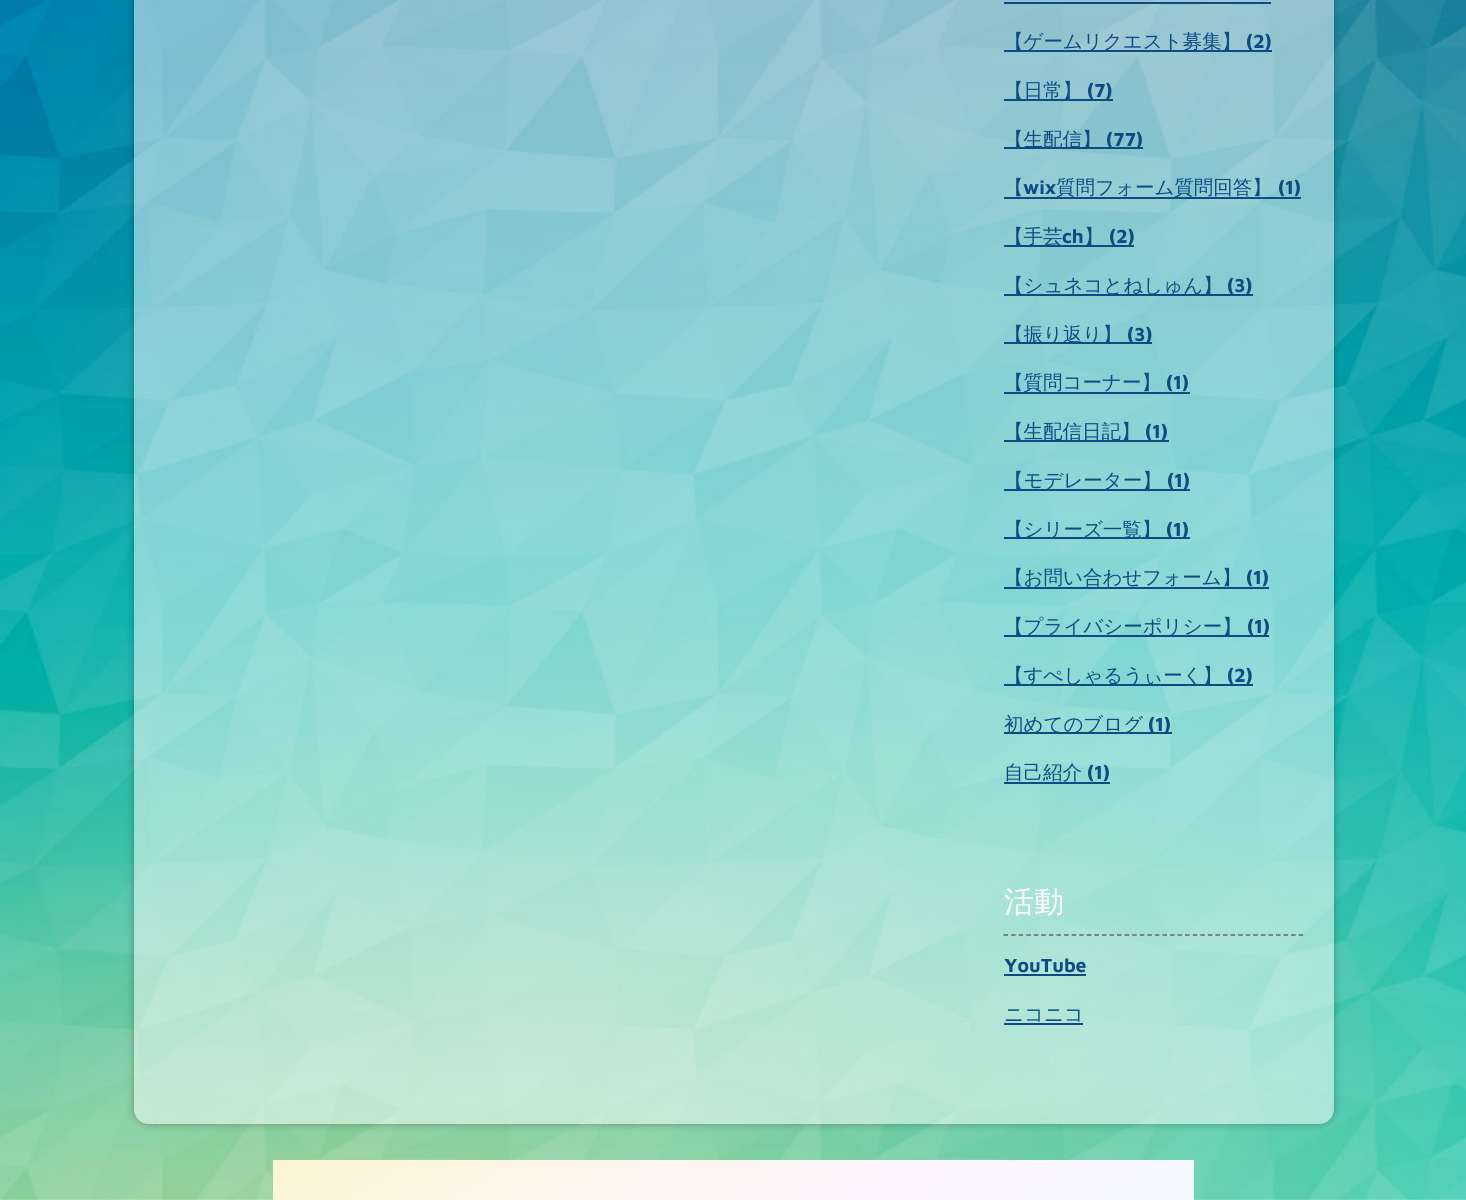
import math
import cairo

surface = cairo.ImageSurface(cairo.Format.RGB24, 1466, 1200)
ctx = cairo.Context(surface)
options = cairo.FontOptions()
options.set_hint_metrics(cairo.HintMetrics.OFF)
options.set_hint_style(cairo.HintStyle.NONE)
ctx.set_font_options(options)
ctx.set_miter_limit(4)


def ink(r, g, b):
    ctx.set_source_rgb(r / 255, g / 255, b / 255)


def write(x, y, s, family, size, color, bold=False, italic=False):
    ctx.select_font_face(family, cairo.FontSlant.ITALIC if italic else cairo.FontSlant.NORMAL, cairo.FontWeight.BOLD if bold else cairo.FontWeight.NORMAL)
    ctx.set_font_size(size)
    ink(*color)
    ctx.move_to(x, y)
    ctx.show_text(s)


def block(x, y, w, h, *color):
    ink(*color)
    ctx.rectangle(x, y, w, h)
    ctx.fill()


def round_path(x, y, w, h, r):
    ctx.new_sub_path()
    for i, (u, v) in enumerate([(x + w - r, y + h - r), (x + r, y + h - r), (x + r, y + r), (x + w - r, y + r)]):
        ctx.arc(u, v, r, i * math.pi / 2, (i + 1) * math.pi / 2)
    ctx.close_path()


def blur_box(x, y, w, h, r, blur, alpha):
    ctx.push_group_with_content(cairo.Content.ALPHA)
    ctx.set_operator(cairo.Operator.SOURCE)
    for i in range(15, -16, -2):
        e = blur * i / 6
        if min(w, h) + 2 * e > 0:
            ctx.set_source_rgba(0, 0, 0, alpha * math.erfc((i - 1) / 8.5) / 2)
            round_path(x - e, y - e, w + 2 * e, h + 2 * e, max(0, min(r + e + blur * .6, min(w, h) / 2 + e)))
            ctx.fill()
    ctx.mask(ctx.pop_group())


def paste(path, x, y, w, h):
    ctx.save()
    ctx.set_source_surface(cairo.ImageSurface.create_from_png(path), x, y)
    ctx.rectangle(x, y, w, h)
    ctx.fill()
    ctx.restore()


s1 = dict(family="WenQuanYi Zen Hei Medium", size=19.5, color=(14, 75, 132))
s2 = dict(family="Maven Pro", size=19.5, color=(14, 75, 132), bold=True)
s3 = dict(family="WenQuanYi Zen Hei Medium", size=30, color=(255, 255, 255))

ink(255, 255, 255)
ctx.paint()
paste("pic1.png", 0, 0, 1466, 1200)
ctx.save()
ctx.set_fill_rule(cairo.FillRule.EVEN_ODD)
ctx.new_path()
ctx.move_to(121, 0)
ctx.line_to(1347, 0)
ctx.line_to(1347, 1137)
ctx.line_to(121, 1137)
ctx.close_path()
ctx.move_to(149, -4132)
ctx.line_to(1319, -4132)
ctx.curve_to(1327.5, -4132, 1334, -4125.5, 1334, -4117)
ctx.line_to(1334, 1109)
ctx.curve_to(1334, 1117.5, 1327.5, 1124, 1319, 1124)
ctx.line_to(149, 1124)
ctx.curve_to(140.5, 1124, 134, 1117.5, 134, 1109)
ctx.line_to(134, -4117)
ctx.curve_to(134, -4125.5, 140.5, -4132, 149, -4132)
ctx.close_path()
ctx.clip()
ink(0, 0, 0)
blur_box(134, -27, 1200, 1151, 15, 4, 0.3)
ctx.restore()
ctx.set_source_rgba(1, 1, 1, 0.5)
round_path(134, -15, 1200, 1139, 15)
ctx.fill()
block(1004, 2, 267, 2, 14, 75, 132)
block(1004, 50, 268, 2, 14, 75, 132)
write(1004, 48, "【ゲームリクエスト募集】", **s1)
write(1246, 48, "(2)", **s2)
block(1004, 99, 109, 2, 14, 75, 132)
write(1004, 97, "【日常】", **s1)
write(1087, 97, "(7)", **s2)
block(1004, 147, 139, 2, 14, 75, 132)
write(1004, 146, "【生配信】", **s1)
write(1106, 146, "(77)", **s2)
write(1004, 194, "【", **s1)
write(1023, 194, "wix", **s2)
block(1004, 197, 297, 2, 14, 75, 132)
write(1056, 194, "質問フォーム質問回答】", **s1)
write(1278, 194, "(1)", **s2)
block(1004, 245, 130, 2, 14, 75, 132)
write(1004, 243, "【手芸", **s1)
write(1062, 243, "ch", **s2)
write(1084, 243, "】", **s1)
write(1109, 243, "(2)", **s2)
block(1004, 294, 249, 2, 14, 75, 132)
write(1004, 292, "【シュネコとねしゅん】", **s1)
write(1227, 292, "(3)", **s2)
block(1004, 342, 148, 2, 14, 75, 132)
write(1004, 341, "【振り返り】", **s1)
write(1127, 341, "(3)", **s2)
block(1004, 392, 186, 2, 14, 75, 132)
write(1004, 389, "【質問コーナー】", **s1)
write(1166, 389, "(1)", **s2)
block(1004, 440, 165, 2, 14, 75, 132)
write(1004, 438, "【生配信日記】", **s1)
write(1145, 438, "(1)", **s2)
block(1004, 489, 186, 2, 14, 75, 132)
write(1004, 487, "【モデレーター】", **s1)
write(1167, 487, "(1)", **s2)
block(1004, 537, 186, 2, 14, 75, 132)
write(1004, 536, "【シリーズ一覧】", **s1)
write(1166, 536, "(1)", **s2)
write(1004, 584, "【お問い合わせフォーム】", **s1)
write(1246, 584, "(1)", **s2)
block(1004, 587, 265, 2, 14, 75, 132)
block(1004, 635, 265, 2, 14, 75, 132)
write(1004, 633, "【プライバシーポリシー】", **s1)
write(1247, 633, "(1)", **s2)
block(1004, 684, 249, 2, 14, 75, 132)
write(1004, 682, "【すぺしゃるうぃーく】", **s1)
write(1227, 682, "(2)", **s2)
block(1004, 732, 168, 2, 14, 75, 132)
write(1004, 731, "初めてのブログ", **s1)
write(1148, 731, "(1)", **s2)
write(1004, 779, "自己紹介", **s1)
write(1087, 779, "(1)", **s2)
block(1004, 782, 106, 2, 14, 75, 132)
ctx.new_path()
ctx.move_to(1003.5, 935)
ctx.line_to(1303.5, 935)
ink(102, 102, 102)
ctx.set_line_width(1.5)
ctx.set_dash([4.5, 3.07])
ctx.stroke()
write(1004, 912, "活動", **s3)
write(1004, 972, "YouTube", **s2)
block(1004, 974, 82, 2, 14, 75, 132)
write(1004, 1021, "ニコニコ", **s1)
block(1004, 1023, 79, 2, 14, 75, 132)
gradient = cairo.LinearGradient(570, 988, 897, 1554)
gradient.add_color_stop_rgba(0, 0.988, 0.961, 0.835, 1)
gradient.add_color_stop_rgba(0.5, 0.996, 0.961, 1, 1)
gradient.add_color_stop_rgba(1, 0.929, 1, 0.988, 1)
ctx.set_source(gradient)
ctx.rectangle(273, 1160, 921, 40)
ctx.fill()
surface.write_to_png("screenshot.png")
